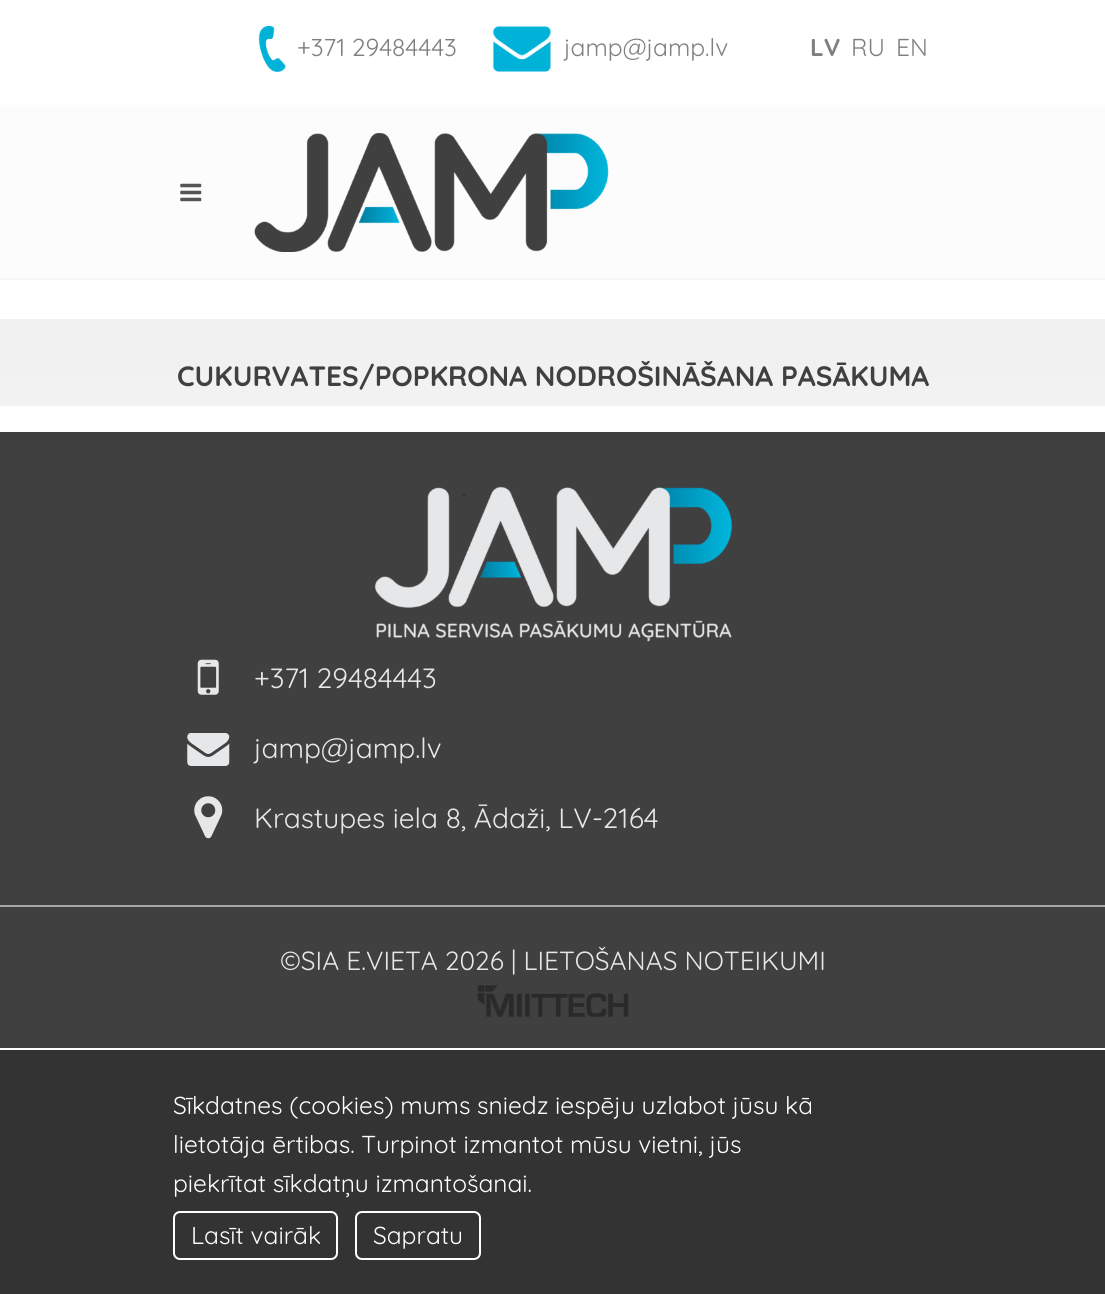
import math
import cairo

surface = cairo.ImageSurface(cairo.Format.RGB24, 1105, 1294)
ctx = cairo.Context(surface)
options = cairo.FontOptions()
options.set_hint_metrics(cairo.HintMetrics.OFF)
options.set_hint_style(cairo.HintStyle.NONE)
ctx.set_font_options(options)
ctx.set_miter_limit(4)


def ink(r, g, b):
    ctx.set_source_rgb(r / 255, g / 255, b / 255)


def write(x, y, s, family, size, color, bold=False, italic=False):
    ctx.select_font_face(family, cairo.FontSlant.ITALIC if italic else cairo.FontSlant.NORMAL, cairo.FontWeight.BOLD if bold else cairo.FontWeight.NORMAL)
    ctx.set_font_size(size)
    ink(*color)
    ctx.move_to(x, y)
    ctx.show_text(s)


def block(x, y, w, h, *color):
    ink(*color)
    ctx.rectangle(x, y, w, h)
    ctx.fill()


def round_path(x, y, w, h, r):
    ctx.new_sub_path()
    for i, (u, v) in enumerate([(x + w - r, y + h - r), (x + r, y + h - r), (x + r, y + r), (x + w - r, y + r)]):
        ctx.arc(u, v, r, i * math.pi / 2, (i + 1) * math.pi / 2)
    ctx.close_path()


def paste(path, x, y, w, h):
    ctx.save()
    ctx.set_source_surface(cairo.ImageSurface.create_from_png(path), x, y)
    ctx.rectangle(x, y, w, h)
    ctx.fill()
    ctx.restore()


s1 = dict(family="Quicksand", size=24.5, color=(127, 127, 127))
s2 = dict(family="Quicksand", size=24.5, color=(127, 127, 127), bold=True)
s3 = dict(family="Quicksand", size=28, color=(64, 64, 65), bold=True)
s4 = dict(family="Quicksand", size=28, color=(230, 231, 232))
s5 = dict(family="Quicksand", size=26.25, color=(230, 231, 232))
s6 = dict(family="Quicksand", size=24.5, color=(255, 255, 255))

ink(255, 255, 255)
ctx.paint()
paste("pic1.png", 258, 26, 28, 46)
write(297, 56, "+371 29484443", **s1)
paste("pic2.png", 492, 26, 60, 46)
write(564, 56, "jamp@jamp.lv", **s1)
write(810, 56, "LV", **s2)
write(851, 56, "RU", **s1)
write(896, 56, "EN", **s1)
block(0, 105, 1105, 173, 252, 252, 252)
block(0, 278, 1105, 2, 245, 245, 245)
paste("pic3.png", 180, 183, 22, 19)
paste("pic4.png", 254, 133, 355, 119)
block(0, 319, 1105, 59, 241, 241, 241)
ctx.set_source_rgba(0.933, 0.933, 0.933, 0.8)
ctx.rectangle(0, 378, 1105, 28)
ctx.fill()
write(177, 386, "CUKURVATES/POPKRONA NODROŠINĀŠANA PASĀKUMA", **s3)
block(0, 432, 1105, 616, 64, 64, 65)
block(0, 905, 1105, 2, 163, 166, 168)
paste("pic5.png", 374, 486, 359, 156)
paste("pic6.png", 197, 659, 22, 36)
write(254, 688, "+371 29484443", **s4)
paste("pic7.png", 187, 733, 43, 33)
write(254, 758, "jamp@jamp.lv", **s4)
paste("pic8.png", 194, 796, 29, 43)
write(254, 828, "Krastupes iela 8, Ādaži, LV-2164", **s4)
write(280, 970, "©SIA E.VIETA 2026 | LIETOŠANAS NOTEIKUMI", **s5)
paste("pic9.png", 477, 985, 152, 32)
block(0, 1050, 1105, 244, 51, 51, 51)
write(173, 1114, "Sīkdatnes (cookies) mums sniedz iespēju uzlabot jūsu kā", **s6)
write(173, 1153, "lietotāja ērtibas. Turpinot izmantot mūsu vietni, jūs", **s6)
write(173, 1192, "piekrītat sīkdatņu izmantošanai.", **s6)
round_path(174, 1212, 163, 47, 6)
ctx.stroke()
write(191, 1244, "Lasīt vairāk", **s6)
round_path(356, 1212, 124, 47, 6)
ctx.stroke()
write(373, 1244, "Sapratu", **s6)
surface.write_to_png("screenshot.png")
